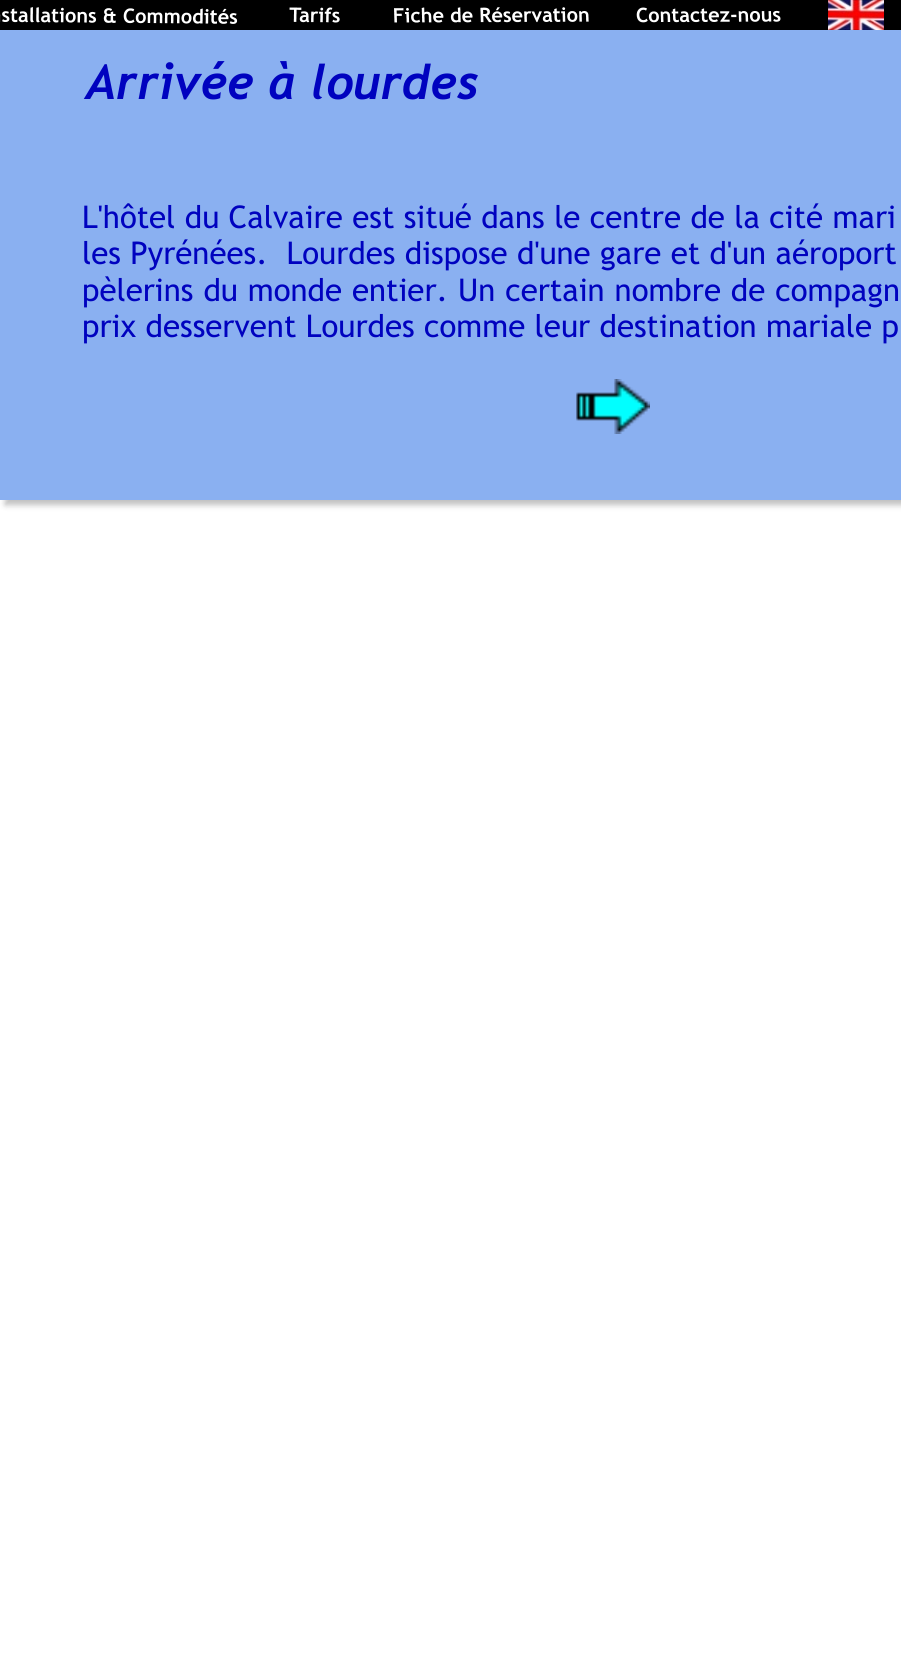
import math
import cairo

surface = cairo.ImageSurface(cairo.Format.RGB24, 901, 1679)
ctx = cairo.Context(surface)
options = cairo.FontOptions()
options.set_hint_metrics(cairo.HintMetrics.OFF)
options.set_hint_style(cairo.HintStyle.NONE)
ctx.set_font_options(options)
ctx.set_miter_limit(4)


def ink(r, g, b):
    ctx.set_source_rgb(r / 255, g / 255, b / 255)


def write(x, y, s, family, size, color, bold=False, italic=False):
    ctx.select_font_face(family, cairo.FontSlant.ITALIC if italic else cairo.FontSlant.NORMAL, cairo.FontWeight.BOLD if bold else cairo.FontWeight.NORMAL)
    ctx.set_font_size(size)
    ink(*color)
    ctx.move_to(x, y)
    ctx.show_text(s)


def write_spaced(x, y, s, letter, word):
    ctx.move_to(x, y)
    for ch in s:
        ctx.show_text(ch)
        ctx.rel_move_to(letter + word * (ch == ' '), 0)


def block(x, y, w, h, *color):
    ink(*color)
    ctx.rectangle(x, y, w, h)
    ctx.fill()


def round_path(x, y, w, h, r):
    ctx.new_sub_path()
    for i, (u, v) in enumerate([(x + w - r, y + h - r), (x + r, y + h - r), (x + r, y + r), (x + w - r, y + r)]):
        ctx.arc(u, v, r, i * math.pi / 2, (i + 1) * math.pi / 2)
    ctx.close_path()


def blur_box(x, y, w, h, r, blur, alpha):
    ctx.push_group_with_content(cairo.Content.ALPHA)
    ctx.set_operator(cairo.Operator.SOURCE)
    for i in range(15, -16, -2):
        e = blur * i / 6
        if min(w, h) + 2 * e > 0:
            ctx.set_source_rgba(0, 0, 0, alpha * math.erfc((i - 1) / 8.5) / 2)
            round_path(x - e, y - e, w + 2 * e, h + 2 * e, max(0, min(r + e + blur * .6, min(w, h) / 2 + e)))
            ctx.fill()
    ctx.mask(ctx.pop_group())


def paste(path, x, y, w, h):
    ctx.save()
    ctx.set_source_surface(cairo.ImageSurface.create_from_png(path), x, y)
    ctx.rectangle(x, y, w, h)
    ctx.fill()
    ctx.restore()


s1 = dict(family="Trebuchet MS", size=48, color=(0, 2, 191), bold=True, italic=True)
s2 = dict(family="Trebuchet MS", size=31.25, color=(0, 2, 191))

ink(255, 255, 255)
ctx.paint()
ink(0, 0, 0)
blur_box(5, 5, 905, 500, 0, 3, 0.25)
block(0, 0, 901, 30, 0, 0, 0)
paste("pic1.png", 0, 7, 238, 17)
paste("pic2.png", 289, 7, 51, 16)
paste("pic3.png", 394, 7, 195, 16)
paste("pic4.png", 636, 7, 145, 16)
paste("pic5.png", 828, 0, 56, 30)
block(0, 30, 901, 470, 138, 176, 241)
write(86, 99, "Arrivée à lourdes", **s1)
write(82, 228, "L'hôtel du Calvaire est situé dans le centre de la cité mari", **s2)
write(82, 264, "les Pyrénées.  Lourdes dispose d'une gare et d'un aéroport", **s2)
write_spaced(82, 301, "pèlerins du monde entier. Un certain nombre de compagn", 0, 0.5)
write(82, 337, "prix desservent Lourdes comme leur destination mariale p", **s2)
paste("pic6.png", 576, 379, 74, 55)
surface.write_to_png("screenshot.png")
